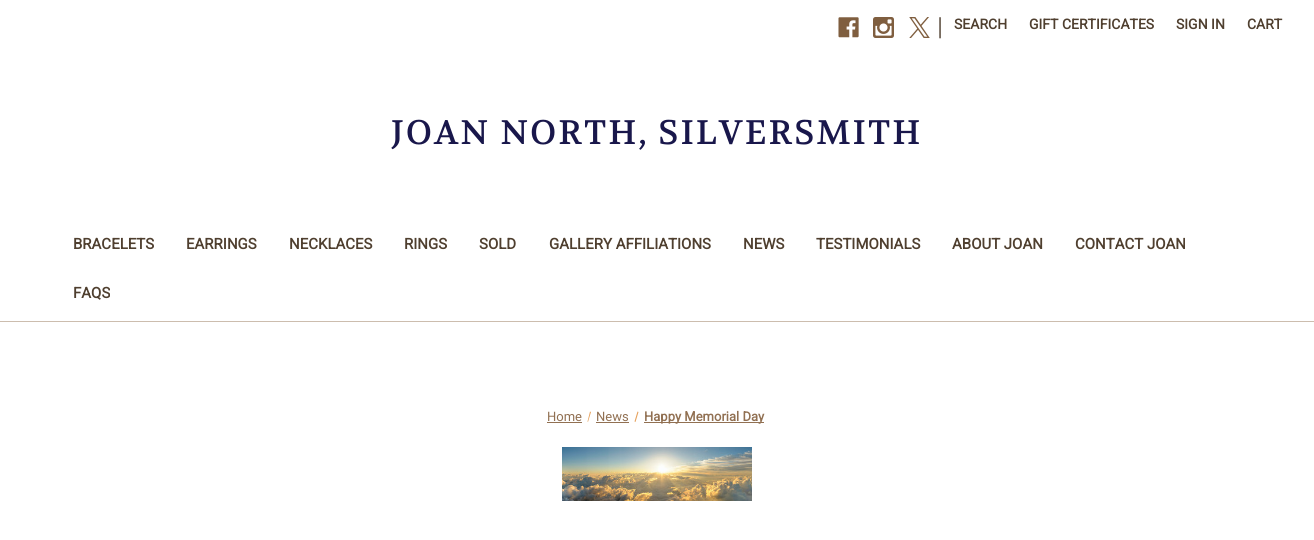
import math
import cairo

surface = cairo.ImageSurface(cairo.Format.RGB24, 1314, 540)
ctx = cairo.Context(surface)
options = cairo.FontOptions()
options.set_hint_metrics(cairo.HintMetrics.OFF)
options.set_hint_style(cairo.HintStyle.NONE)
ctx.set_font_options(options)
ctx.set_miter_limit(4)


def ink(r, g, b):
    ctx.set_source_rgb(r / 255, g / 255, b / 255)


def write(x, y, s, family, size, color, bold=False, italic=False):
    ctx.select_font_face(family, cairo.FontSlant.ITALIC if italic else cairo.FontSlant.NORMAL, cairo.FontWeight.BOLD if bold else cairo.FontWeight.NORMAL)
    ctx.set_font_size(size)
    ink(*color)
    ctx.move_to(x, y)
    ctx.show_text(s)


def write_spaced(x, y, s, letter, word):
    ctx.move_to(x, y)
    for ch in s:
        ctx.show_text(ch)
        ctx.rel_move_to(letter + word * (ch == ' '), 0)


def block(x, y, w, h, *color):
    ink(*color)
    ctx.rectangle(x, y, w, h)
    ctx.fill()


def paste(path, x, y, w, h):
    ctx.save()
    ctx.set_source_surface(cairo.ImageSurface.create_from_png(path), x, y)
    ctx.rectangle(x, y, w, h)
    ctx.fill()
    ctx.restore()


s1 = dict(family="Roboto", size=25, color=(116, 104, 92))
s2 = dict(family="Roboto", size=14, color=(79, 63, 47), bold=True)
s3 = dict(family="Roboto", size=15, color=(79, 63, 47), bold=True)
s4 = dict(family="Roboto", size=13, color=(145, 112, 82))
s5 = dict(family="Roboto", size=13, color=(145, 112, 82), bold=True)

ink(255, 255, 255)
ctx.paint()
block(0, 321, 1314, 1, 204, 189, 174)
paste("pic1.png", 838, 17, 21, 21)
paste("pic2.png", 873, 17, 21, 21)
paste("pic3.png", 909, 17, 21, 21)
write(937, 35, "|", **s1)
write(954, 29, "SEARCH", **s2)
write(1029, 29, "GIFT CERTIFICATES", **s2)
write(1176, 29, "SIGN IN", **s2)
write(1247, 29, "CART", **s2)
ctx.select_font_face("Volkhov")
ctx.set_font_size(34)
ink(25, 23, 75)
write_spaced(391, 144, "JOAN NORTH, SILVERSMITH", 2, 0)
write(73, 249, "BRACELETS", **s3)
write(186, 249, "EARRINGS", **s3)
write(289, 249, "NECKLACES", **s3)
write(404, 249, "RINGS", **s3)
write(479, 249, "SOLD", **s3)
write(549, 249, "GALLERY AFFILIATIONS", **s3)
write(743, 249, "NEWS", **s3)
write(816, 249, "TESTIMONIALS", **s3)
write(952, 249, "ABOUT JOAN", **s3)
write(1075, 249, "CONTACT JOAN", **s3)
write(73, 298, "FAQS", **s3)
write(547, 421, "Home", **s4)
block(547, 422, 35, 1, 145, 112, 82)
write(596, 421, "News", **s4)
ink(230, 161, 92)
ctx.new_path()
ctx.move_to(590, 411.5)
ctx.line_to(591, 412)
ctx.line_to(588, 422)
ctx.line_to(587.5, 421.5)
ctx.close_path()
ctx.move_to(637.5, 411.5)
ctx.line_to(638.5, 412)
ctx.line_to(635.5, 422)
ctx.line_to(634.5, 421.5)
ctx.close_path()
ctx.fill()
block(596, 422, 33, 1, 145, 112, 82)
block(644, 422, 120, 1, 145, 112, 82)
write(644, 421, "Happy Memorial Day", **s5)
paste("pic4.png", 562, 447, 190, 54)
surface.write_to_png("screenshot.png")
